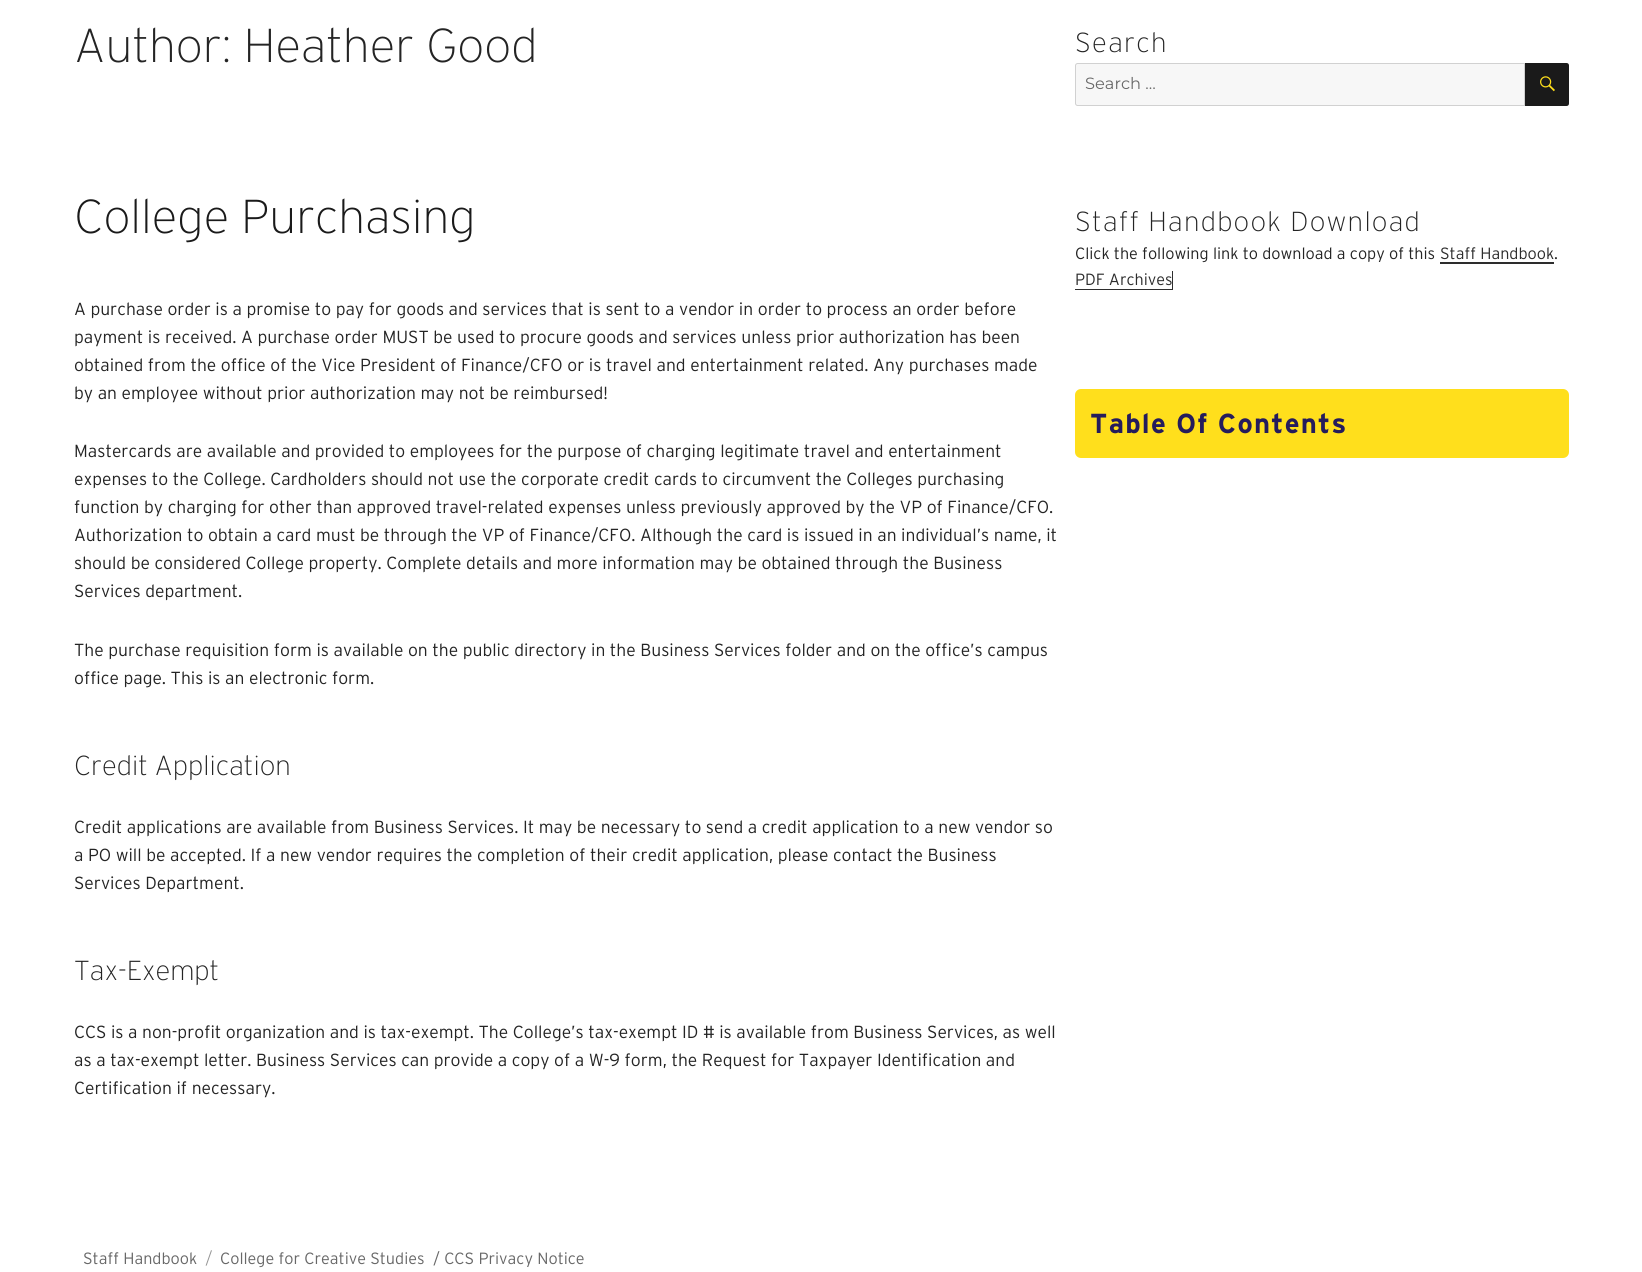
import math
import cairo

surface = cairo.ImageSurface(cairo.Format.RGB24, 1642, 1272)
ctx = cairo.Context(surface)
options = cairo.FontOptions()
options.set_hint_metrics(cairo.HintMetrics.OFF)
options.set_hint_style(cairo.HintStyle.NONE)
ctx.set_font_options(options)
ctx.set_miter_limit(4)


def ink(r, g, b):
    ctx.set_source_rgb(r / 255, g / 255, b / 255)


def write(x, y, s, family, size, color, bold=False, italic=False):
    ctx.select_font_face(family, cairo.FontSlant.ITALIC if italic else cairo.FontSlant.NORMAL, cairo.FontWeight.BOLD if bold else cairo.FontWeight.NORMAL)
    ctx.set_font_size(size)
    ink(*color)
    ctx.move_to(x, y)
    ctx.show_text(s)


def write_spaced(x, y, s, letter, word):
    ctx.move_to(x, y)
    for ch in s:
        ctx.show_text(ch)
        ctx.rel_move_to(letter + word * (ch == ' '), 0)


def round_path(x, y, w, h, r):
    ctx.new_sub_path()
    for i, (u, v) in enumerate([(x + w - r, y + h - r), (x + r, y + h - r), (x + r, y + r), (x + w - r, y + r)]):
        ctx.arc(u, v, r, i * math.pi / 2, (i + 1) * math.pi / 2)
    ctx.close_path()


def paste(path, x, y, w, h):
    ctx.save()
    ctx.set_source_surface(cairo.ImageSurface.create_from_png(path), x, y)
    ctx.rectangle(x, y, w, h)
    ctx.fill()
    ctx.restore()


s1 = dict(family="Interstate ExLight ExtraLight", size=47.5, color=(36, 36, 36))
s2 = dict(family="Interstate ExLight ExtraLight", size=47.5, color=(26, 26, 26))
s3 = dict(family="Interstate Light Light", size=17.5, color=(36, 36, 36))
s4 = dict(family="Interstate ExLight ExtraLight", size=27.5, color=(36, 36, 36))
s5 = dict(family="Montserrat Thin", size=16.25, color=(104, 104, 104))
s6 = dict(family="Interstate Light Light", size=16.25, color=(36, 36, 36))
s7 = dict(family="Interstate Light Light", size=16.25, color=(45, 45, 45))
s8 = dict(family="Interstate Light Light", size=16.25, color=(104, 104, 104))
s9 = dict(family="Montserrat Thin", size=16.25, color=(149, 149, 149))

ink(255, 255, 255)
ctx.paint()
write(74, 62, "Author: Heather Good", **s1)
write(74, 233, "College Purchasing", **s2)
write(74, 315, "A purchase order is a promise to pay for goods and services that is sent to a vendor in order to process an order before", **s3)
write(74, 343, "payment is received. A purchase order MUST be used to procure goods and services unless prior authorization has been", **s3)
write(74, 371, "obtained from the office of the Vice President of Finance/CFO or is travel and entertainment related. Any purchases made", **s3)
write(74, 399, "by an employee without prior authorization may not be reimbursed!", **s3)
write(74, 457, "Mastercards are available and provided to employees for the purpose of charging legitimate travel and entertainment", **s3)
write(74, 485, "expenses to the College. Cardholders should not use the corporate credit cards to circumvent the Colleges purchasing", **s3)
write(74, 513, "function by charging for other than approved travel-related expenses unless previously approved by the VP of Finance/CFO.", **s3)
write(74, 541, "Authorization to obtain a card must be through the VP of Finance/CFO. Although the card is issued in an individual’s name, it", **s3)
write(74, 569, "should be considered College property. Complete details and more information may be obtained through the Business", **s3)
write(74, 597, "Services department.", **s3)
write(74, 656, "The purchase requisition form is available on the public directory in the Business Services folder and on the office’s campus", **s3)
write(74, 684, "office page. This is an electronic form.", **s3)
write(74, 775, "Credit Application", **s4)
write(74, 833, "Credit applications are available from Business Services. It may be necessary to send a credit application to a new vendor so", **s3)
write(74, 861, "a PO will be accepted. If a new vendor requires the completion of their credit application, please contact the Business", **s3)
write(74, 889, "Services Department.", **s3)
write(74, 980, "Tax-Exempt", **s4)
write(74, 1038, "CCS is a non-profit organization and is tax-exempt. The College’s tax-exempt ID # is available from Business Services, as well", **s3)
write(74, 1066, "as a tax-exempt letter. Business Services can provide a copy of a W-9 form, the Request for Taxpayer Identification and", **s3)
write(74, 1094, "Certification if necessary.", **s3)
ctx.select_font_face("Interstate ExLight ExtraLight")
ctx.set_font_size(27.5)
write_spaced(1075, 52, "Search", 1.25, 0)
ink(247, 247, 247)
ctx.new_path()
ctx.move_to(1077.5, 63.5)
ctx.line_to(1524.5, 63.5)
ctx.line_to(1524.5, 105.5)
ctx.line_to(1077.5, 105.5)
ctx.curve_to(1076.5, 105.5, 1075.5, 104.5, 1075.5, 103.5)
ctx.line_to(1075.5, 65.5)
ctx.curve_to(1075.5, 64.5, 1076.5, 63.5, 1077.5, 63.5)
ctx.close_path()
ctx.fill_preserve()
ink(209, 209, 209)
ctx.set_line_width(1)
ctx.stroke()
write(1085, 89, "Search …", **s5)
ink(26, 26, 26)
ctx.new_path()
ctx.move_to(1525, 63)
ctx.line_to(1566.5, 63)
ctx.curve_to(1568, 63, 1569, 64, 1569, 65.5)
ctx.line_to(1569, 103.5)
ctx.curve_to(1569, 105, 1568, 106, 1566.5, 106)
ctx.line_to(1525, 106)
ctx.close_path()
ctx.fill()
paste("pic1.png", 1540, 76, 15, 16)
ctx.select_font_face("Interstate ExLight ExtraLight")
ctx.set_font_size(27.5)
ink(36, 36, 36)
write_spaced(1075, 231, "Staff Handbook Download", 1.25, 0)
write(1075, 259, "Click the following link to download a copy of this", **s6)
write(1440, 259, "Staff Handbook", **s7)
ctx.new_path()
ctx.move_to(1440, 262)
ctx.line_to(1440, 264)
ctx.line_to(1554, 264)
ctx.line_to(1554, 245)
ctx.line_to(1554, 262)
ctx.close_path()
ctx.fill()
write(1554, 259, ".", **s6)
ink(45, 45, 45)
ctx.new_path()
ctx.move_to(1075, 289)
ctx.line_to(1075, 290)
ctx.line_to(1173, 290)
ctx.line_to(1173, 271)
ctx.line_to(1172, 271)
ctx.line_to(1172, 289)
ctx.close_path()
ctx.fill()
write(1075, 285, "PDF Archives", **s7)
ink(255, 223, 28)
round_path(1075, 389, 494, 69, 6)
ctx.fill()
ctx.select_font_face("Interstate", cairo.FontSlant.NORMAL, cairo.FontWeight.BOLD)
ctx.set_font_size(27.5)
ink(37, 28, 92)
write_spaced(1090, 433, "Table Of Contents", 1.25, 0)
write(83, 1264, "Staff Handbook", **s8)
write(206, 1264, "/", **s9)
write(220, 1264, "College for Creative Studies", **s8)
write(433, 1264, "/ CCS Privacy Notice", **s8)
surface.write_to_png("screenshot.png")
